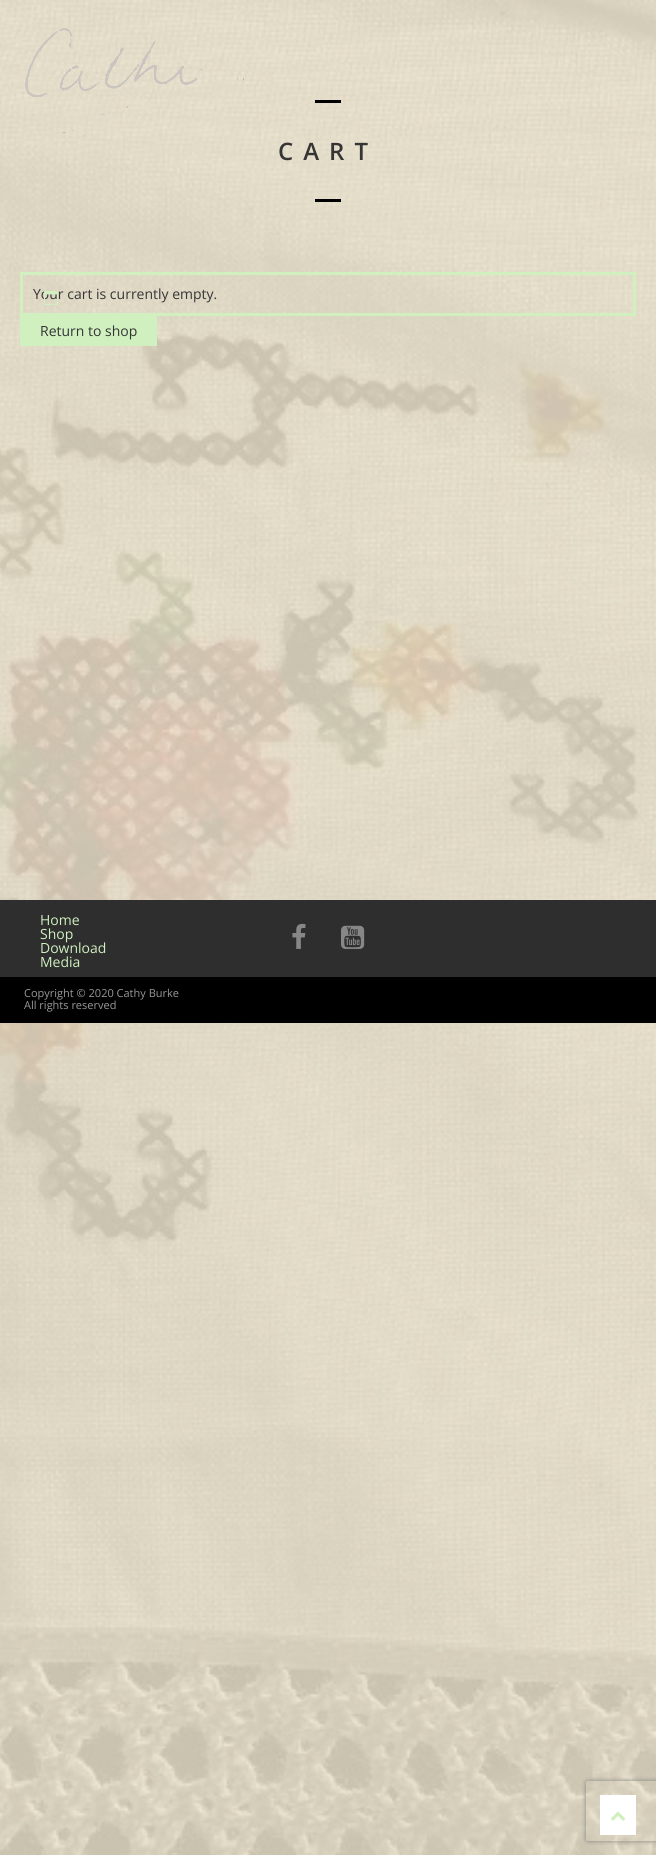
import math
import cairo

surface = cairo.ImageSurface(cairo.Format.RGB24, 656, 1855)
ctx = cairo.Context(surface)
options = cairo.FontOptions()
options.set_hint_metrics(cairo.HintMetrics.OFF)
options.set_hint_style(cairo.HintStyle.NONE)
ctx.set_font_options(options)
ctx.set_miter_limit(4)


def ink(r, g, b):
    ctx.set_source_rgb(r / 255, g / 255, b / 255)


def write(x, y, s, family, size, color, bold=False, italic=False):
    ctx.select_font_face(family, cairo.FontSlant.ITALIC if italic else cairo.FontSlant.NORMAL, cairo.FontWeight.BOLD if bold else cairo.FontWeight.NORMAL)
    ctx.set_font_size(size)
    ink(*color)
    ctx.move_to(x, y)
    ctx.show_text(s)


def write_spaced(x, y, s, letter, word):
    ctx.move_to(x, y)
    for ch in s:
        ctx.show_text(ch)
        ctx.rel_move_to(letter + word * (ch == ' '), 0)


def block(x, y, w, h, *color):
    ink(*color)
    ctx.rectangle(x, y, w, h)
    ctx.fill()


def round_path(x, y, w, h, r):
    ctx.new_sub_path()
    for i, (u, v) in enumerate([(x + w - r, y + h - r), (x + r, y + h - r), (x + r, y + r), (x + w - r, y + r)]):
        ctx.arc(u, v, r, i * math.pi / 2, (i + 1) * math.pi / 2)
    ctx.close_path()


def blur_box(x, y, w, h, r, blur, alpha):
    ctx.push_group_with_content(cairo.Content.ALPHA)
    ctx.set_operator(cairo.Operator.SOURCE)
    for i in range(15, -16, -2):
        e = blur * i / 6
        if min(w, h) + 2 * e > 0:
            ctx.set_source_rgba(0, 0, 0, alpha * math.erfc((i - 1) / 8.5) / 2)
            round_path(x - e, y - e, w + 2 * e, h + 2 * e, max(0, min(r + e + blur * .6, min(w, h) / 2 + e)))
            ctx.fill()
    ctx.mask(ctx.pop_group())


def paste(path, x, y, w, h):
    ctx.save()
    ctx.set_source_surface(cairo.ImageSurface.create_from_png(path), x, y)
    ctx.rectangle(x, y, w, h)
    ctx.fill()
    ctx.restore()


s1 = dict(family="Open Sans", size=14, color=(53, 53, 53))
s2 = dict(family="Open Sans", size=14, color=(208, 240, 192))
s3 = dict(family="Open Sans", size=11, color=(153, 153, 153))

ink(255, 255, 255)
ctx.paint()
paste("pic2.png", 0, 0, 656, 1855)
block(315, 100, 26, 3, 0, 0, 0)
paste("pic1.png", 25, 28, 372, 109)
ctx.select_font_face("Open Sans SemiBold")
ctx.set_font_size(24)
ink(53, 53, 53)
write_spaced(278, 160, "CART", 10, 0)
block(315, 199, 26, 3, 0, 0, 0)
ctx.rectangle(21.5, 273.5, 613, 41)
ink(208, 240, 192)
ctx.set_line_width(3)
ctx.stroke()
write(33, 299, "Your cart is currently empty.", **s1)
paste("pic3.png", 44, 291, 14, 14)
block(20, 316, 137, 30, 208, 240, 192)
write(40, 336, "Return to shop", **s1)
block(0, 900, 656, 77, 46, 46, 46)
write(40, 925, "Home", **s2)
write(40, 939, "Shop", **s2)
write(40, 953, "Download", **s2)
write(40, 967, "Media", **s2)
paste("pic4.png", 292, 923, 14, 26)
paste("pic5.png", 341, 925, 24, 24)
block(0, 977, 656, 46, 0, 0, 0)
write(24, 997, "Copyright © 2020 Cathy Burke", **s3)
write(24, 1009, "All rights reserved", **s3)
block(600, 1795, 36, 40, 255, 255, 255)
paste("pic6.png", 610, 1811, 16, 10)
ctx.save()
ctx.set_fill_rule(cairo.FillRule.EVEN_ODD)
ctx.new_path()
ctx.move_to(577, 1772)
ctx.line_to(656, 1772)
ctx.line_to(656, 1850)
ctx.line_to(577, 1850)
ctx.close_path()
ctx.move_to(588, 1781)
ctx.line_to(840, 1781)
ctx.curve_to(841, 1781, 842, 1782, 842, 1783)
ctx.line_to(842, 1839)
ctx.curve_to(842, 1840, 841, 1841, 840, 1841)
ctx.line_to(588, 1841)
ctx.curve_to(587, 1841, 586, 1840, 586, 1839)
ctx.line_to(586, 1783)
ctx.curve_to(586, 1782, 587, 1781, 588, 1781)
ctx.close_path()
ctx.clip()
ink(128, 128, 128)
blur_box(586, 1781, 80, 60, 2, 2.5, 1)
ctx.restore()
surface.write_to_png("screenshot.png")
